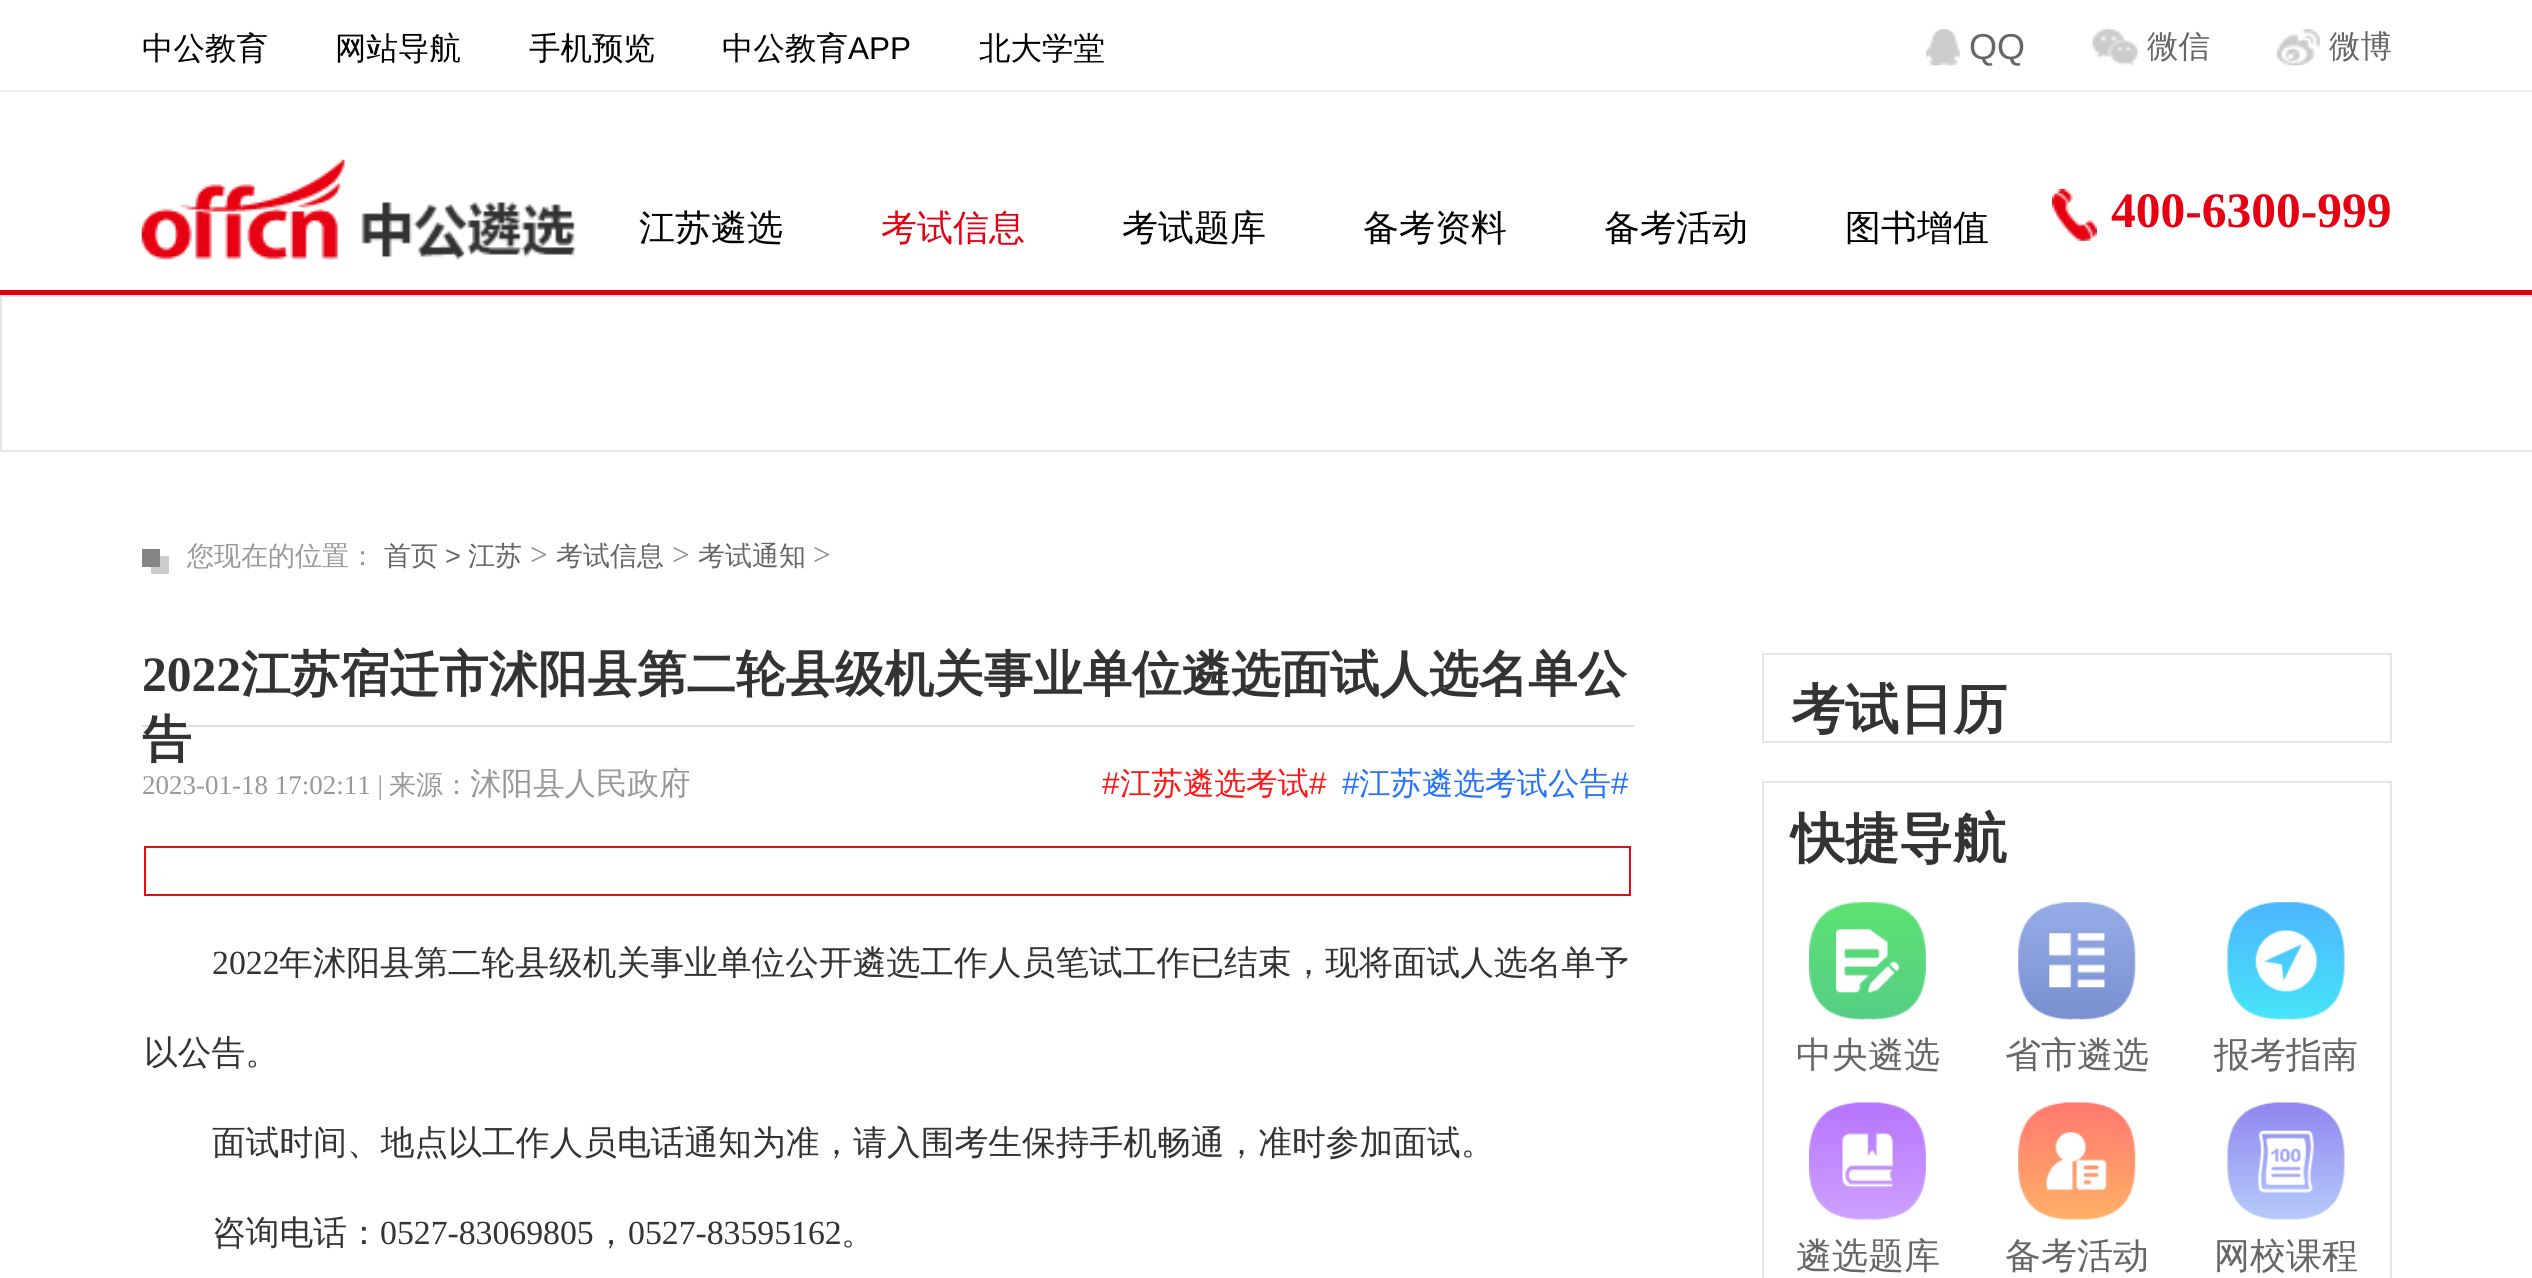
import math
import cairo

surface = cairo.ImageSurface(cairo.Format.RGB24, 2532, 1278)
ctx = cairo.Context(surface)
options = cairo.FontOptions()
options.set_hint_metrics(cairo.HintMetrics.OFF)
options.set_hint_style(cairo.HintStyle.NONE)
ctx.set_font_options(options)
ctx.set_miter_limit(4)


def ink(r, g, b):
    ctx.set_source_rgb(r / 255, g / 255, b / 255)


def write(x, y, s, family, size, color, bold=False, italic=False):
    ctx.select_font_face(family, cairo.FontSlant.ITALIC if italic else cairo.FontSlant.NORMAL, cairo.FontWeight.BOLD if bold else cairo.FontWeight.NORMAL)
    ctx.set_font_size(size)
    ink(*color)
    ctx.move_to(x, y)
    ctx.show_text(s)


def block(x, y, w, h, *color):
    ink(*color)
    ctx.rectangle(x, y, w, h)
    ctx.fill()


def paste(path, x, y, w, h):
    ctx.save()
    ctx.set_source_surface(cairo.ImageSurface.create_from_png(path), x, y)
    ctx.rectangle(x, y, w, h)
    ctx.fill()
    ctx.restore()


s1 = dict(family="WenQuanYi Zen Hei Medium", size=31.5, color=(0, 0, 0))
s2 = dict(family="Liberation Sans", size=31.5, color=(0, 0, 0))
s3 = dict(family="Liberation Sans", size=36, color=(102, 102, 102))
s4 = dict(family="WenQuanYi Zen Hei Medium", size=31.5, color=(102, 102, 102))
s5 = dict(family="WenQuanYi Zen Hei Medium", size=36, color=(0, 0, 0))
s6 = dict(family="WenQuanYi Zen Hei Medium", size=36, color=(230, 0, 18))
s7 = dict(family="Liberation Serif", size=49.5, color=(230, 0, 18), bold=True)
s8 = dict(family="WenQuanYi Zen Hei Medium", size=27, color=(153, 153, 153))
s9 = dict(family="WenQuanYi Zen Hei Medium", size=27, color=(102, 102, 102))
s10 = dict(family="Liberation Sans", size=27, color=(102, 102, 102))
s11 = dict(family="Liberation Serif", size=31.5, color=(136, 136, 136))
s12 = dict(family="Liberation Serif", size=49.5, color=(51, 51, 51), bold=True)
s13 = dict(family="WenQuanYi Zen Hei", size=49.5, color=(51, 51, 51), bold=True)
s14 = dict(family="Liberation Serif", size=27, color=(153, 153, 153))
s15 = dict(family="WenQuanYi Zen Hei Medium", size=31.5, color=(153, 153, 153))
s16 = dict(family="Liberation Sans", size=31.5, color=(255, 22, 22))
s17 = dict(family="WenQuanYi Zen Hei Medium", size=31.5, color=(255, 22, 22))
s18 = dict(family="Liberation Sans", size=31.5, color=(38, 113, 255))
s19 = dict(family="WenQuanYi Zen Hei Medium", size=31.5, color=(38, 113, 255))
s20 = dict(family="Liberation Serif", size=33.75, color=(51, 51, 51))
s21 = dict(family="WenQuanYi Zen Hei Medium", size=33.75, color=(51, 51, 51))
s22 = dict(family="WenQuanYi Zen Hei", size=54, color=(51, 51, 51), bold=True)
s23 = dict(family="WenQuanYi Zen Hei Medium", size=36, color=(102, 102, 102))

ink(255, 255, 255)
ctx.paint()
block(0, 90, 2532, 2, 238, 238, 238)
write(142, 59, "中公教育", **s1)
write(335, 59, "网站导航", **s1)
write(529, 59, "手机预览", **s1)
write(722, 59, "中公教育", **s1)
write(848, 59, "APP", **s2)
write(979, 59, "北大学堂", **s1)
paste("pic1.png", 1926, 29, 34, 37)
write(1969, 59, "QQ", **s3)
paste("pic2.png", 2092, 29, 46, 37)
write(2147, 57, "微信", **s4)
paste("pic3.png", 2277, 29, 43, 37)
write(2329, 57, "微博", **s4)
block(0, 290, 2532, 5, 230, 0, 18)
paste("pic4.png", 141, 159, 435, 101)
write(639, 240, "江苏遴选", **s5)
write(881, 240, "考试信息", **s6)
write(1122, 240, "考试题库", **s5)
write(1363, 240, "备考资料", **s5)
write(1604, 240, "备考活动", **s5)
write(1845, 240, "图书增值", **s5)
paste("pic5.png", 2052, 189, 45, 52)
write(2111, 227, "400-6300-999", **s7)
ctx.rectangle(1, 296, 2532, 155)
ink(230, 230, 230)
ctx.stroke()
block(151, 556, 18, 18, 204, 204, 204)
block(142, 549, 18, 18, 133, 133, 133)
write(187, 565, "您现在的位置：", **s8)
write(384, 565, "首页", **s9)
write(445, 565, ">", **s10)
write(468, 565, "江苏", **s9)
write(530, 565, ">", **s11)
write(556, 565, "考试信息", **s9)
write(672, 565, ">", **s11)
write(698, 565, "考试通知", **s9)
write(813, 565, ">", **s11)
block(142, 725, 1492, 2, 221, 221, 221)
write(142, 691, "2022", **s12)
write(241, 691, "江苏宿迁市沭阳县第二轮县级机关事业单位遴选面试人选名单公", **s13)
write(142, 756, "告", **s13)
write(142, 794, "2023-01-18 17:02:11 |", **s14)
write(389, 794, "来源：", **s8)
write(470, 794, "沭阳县人民政府", **s15)
write(1102, 794, "#", **s16)
write(1120, 794, "江苏遴选考试", **s17)
write(1309, 794, "#", **s16)
write(1342, 794, "#", **s18)
write(1359, 794, "江苏遴选考试公告", **s19)
write(1611, 794, "#", **s18)
ctx.rectangle(145, 847, 1485, 48)
ink(234, 12, 21)
ctx.stroke()
write(212, 974, "2022", **s20)
write(279, 974, "年沭阳县第二轮县级机关事业单位公开遴选工作人员笔试工作已结束，现将面试人选名单予", **s21)
write(144, 1064, "以公告。", **s21)
write(212, 1154, "面试时间、地点以工作人员电话通知为准，请入围考生保持手机畅通，准时参加面试。", **s21)
write(212, 1244, "咨询电话：", **s21)
write(380, 1244, "0527-83069805", **s20)
write(594, 1244, "，", **s21)
write(628, 1244, "0527-83595162", **s20)
write(841, 1244, "。", **s21)
ctx.rectangle(1763, 654, 628, 88)
ink(230, 230, 230)
ctx.stroke()
write(1791, 728, "考试日历", **s22)
ctx.rectangle(1763, 782, 628, 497)
ink(230, 230, 230)
ctx.stroke()
write(1791, 857, "快捷导航", **s22)
paste("pic6.png", 1809, 902, 117, 118)
write(1796, 1067, "中央遴选", **s23)
paste("pic7.png", 2018, 902, 118, 118)
write(2005, 1067, "省市遴选", **s23)
paste("pic8.png", 2227, 902, 118, 118)
write(2214, 1067, "报考指南", **s23)
paste("pic9.png", 1809, 1102, 117, 118)
write(1796, 1268, "遴选题库", **s23)
paste("pic10.png", 2018, 1102, 118, 118)
write(2005, 1268, "备考活动", **s23)
paste("pic11.png", 2227, 1102, 118, 118)
write(2214, 1268, "网校课程", **s23)
surface.write_to_png("screenshot.png")
